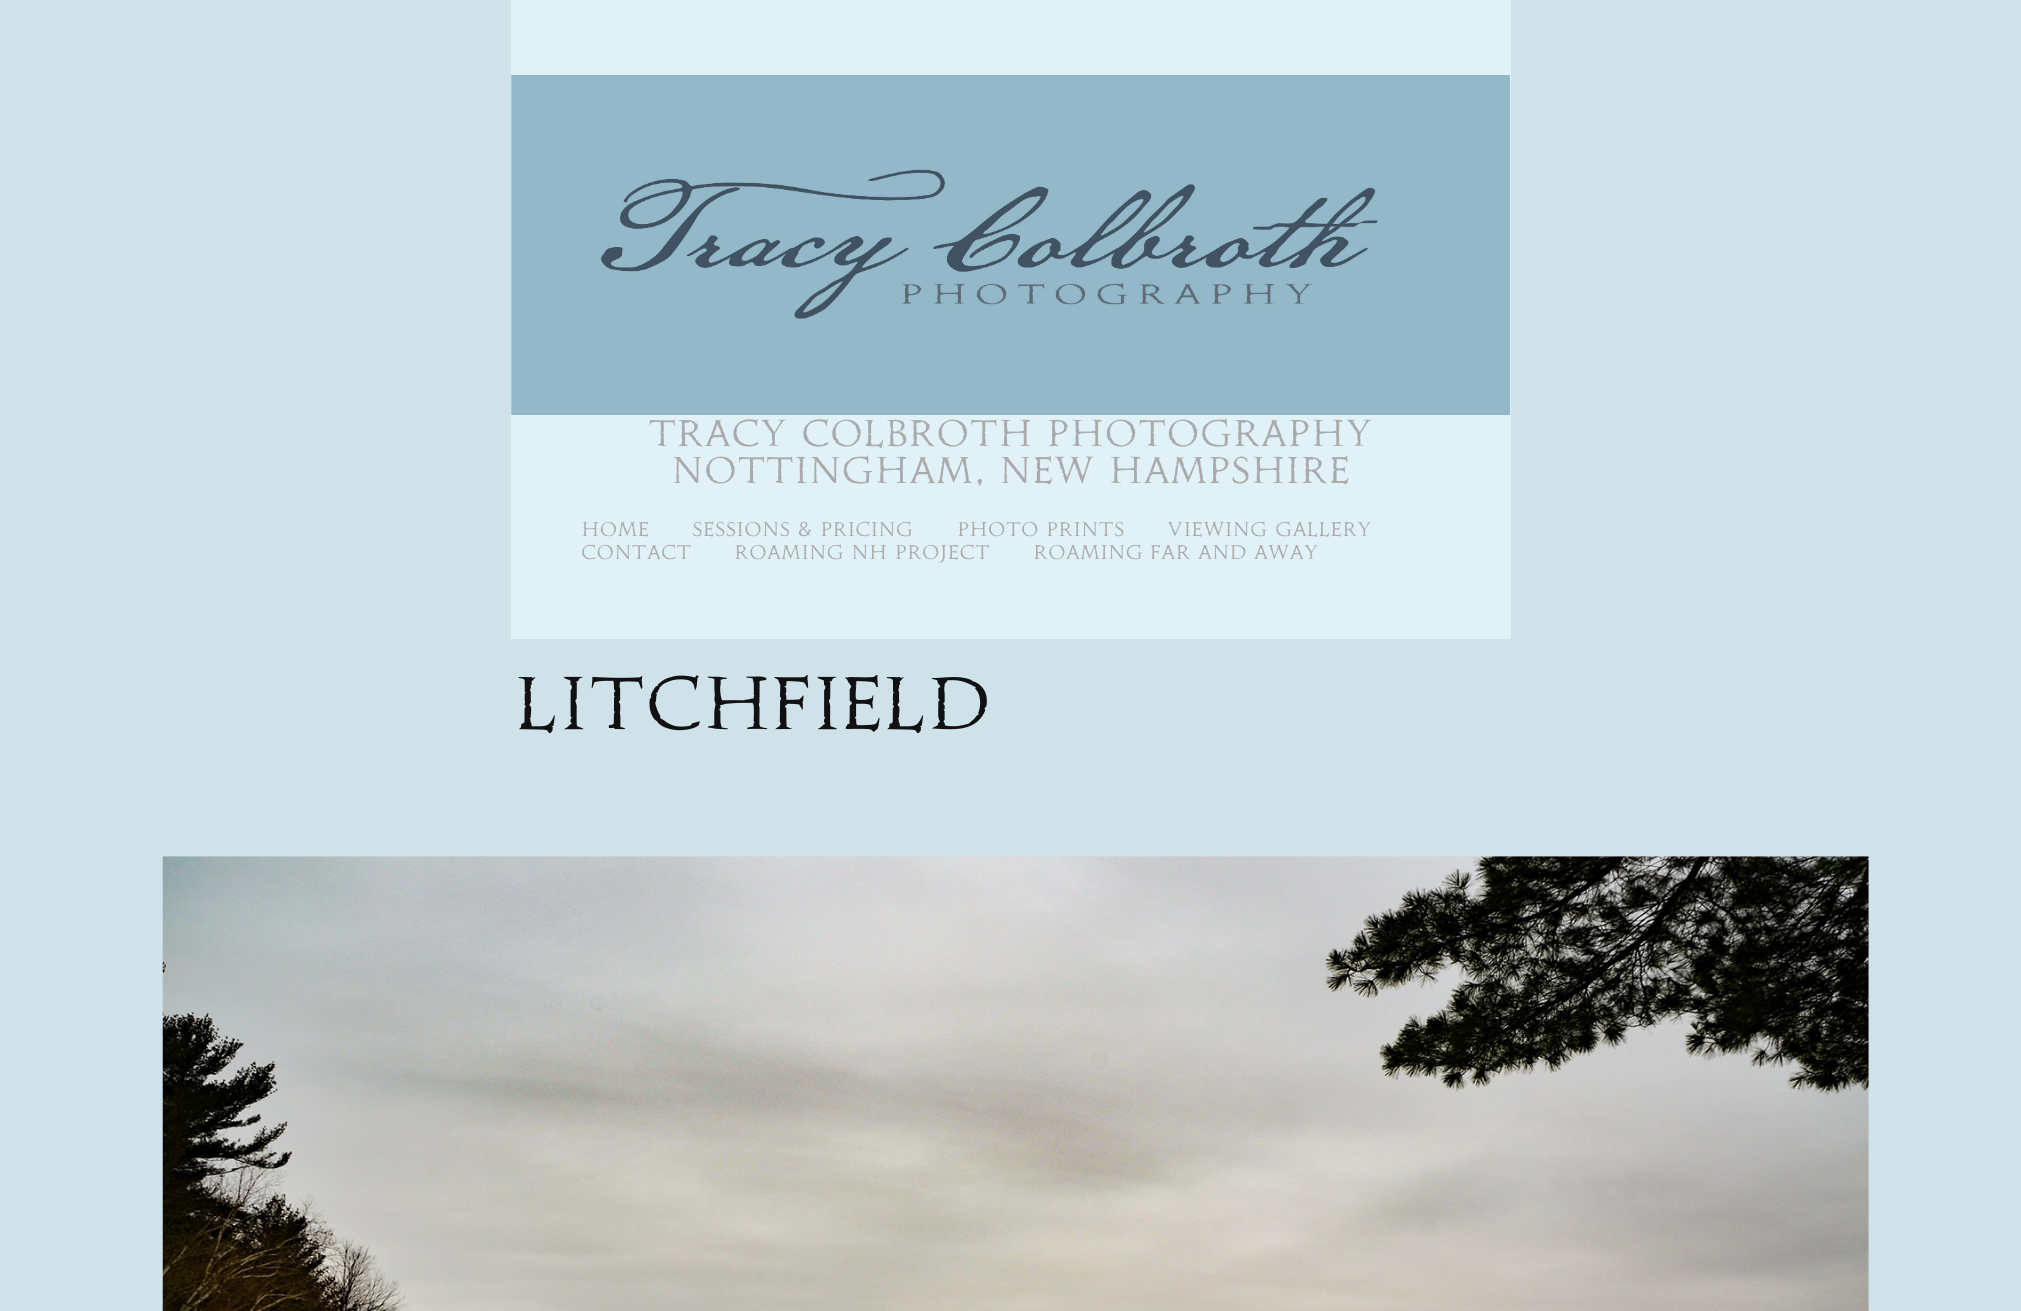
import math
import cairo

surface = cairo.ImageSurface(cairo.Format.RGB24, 2021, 1311)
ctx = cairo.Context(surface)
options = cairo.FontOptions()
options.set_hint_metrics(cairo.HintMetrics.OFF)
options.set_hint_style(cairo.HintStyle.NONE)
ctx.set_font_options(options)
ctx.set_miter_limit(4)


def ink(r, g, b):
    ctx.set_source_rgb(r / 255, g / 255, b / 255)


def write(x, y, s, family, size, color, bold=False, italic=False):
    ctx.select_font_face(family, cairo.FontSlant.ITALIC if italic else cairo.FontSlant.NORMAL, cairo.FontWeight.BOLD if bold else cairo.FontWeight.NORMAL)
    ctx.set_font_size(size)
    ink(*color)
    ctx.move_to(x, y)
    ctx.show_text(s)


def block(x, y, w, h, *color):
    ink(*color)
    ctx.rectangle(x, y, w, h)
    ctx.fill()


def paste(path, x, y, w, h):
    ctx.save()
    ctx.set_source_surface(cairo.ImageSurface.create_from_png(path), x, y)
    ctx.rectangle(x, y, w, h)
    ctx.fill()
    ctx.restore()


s1 = dict(family="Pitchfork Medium", size=37.5, color=(170, 170, 170))
s2 = dict(family="Pitchfork Medium", size=20, color=(170, 170, 170))
s3 = dict(family="Pitchfork Medium", size=75, color=(17, 17, 17))

ink(207, 226, 233)
ctx.paint()
block(511, 0, 1000, 639, 224, 241, 247)
paste("pic1.png", 511, 75, 999, 340)
write(648, 446, "TRACY COLBROTH PHOTOGRAPHY", **s1)
write(671, 483, "NOTTINGHAM, NEW HAMPSHIRE", **s1)
write(581, 536, "HOME", **s2)
write(692, 536, "SESSIONS & PRICING", **s2)
write(957, 536, "PHOTO PRINTS", **s2)
write(1167, 536, "VIEWING GALLERY", **s2)
write(581, 559, "CONTACT", **s2)
write(734, 559, "ROAMING NH PROJECT", **s2)
write(1033, 559, "ROAMING FAR AND AWAY", **s2)
write(515, 729, "Litchfield", **s3)
paste("pic2.png", 162, 856, 1707, 455)
surface.write_to_png("screenshot.png")
